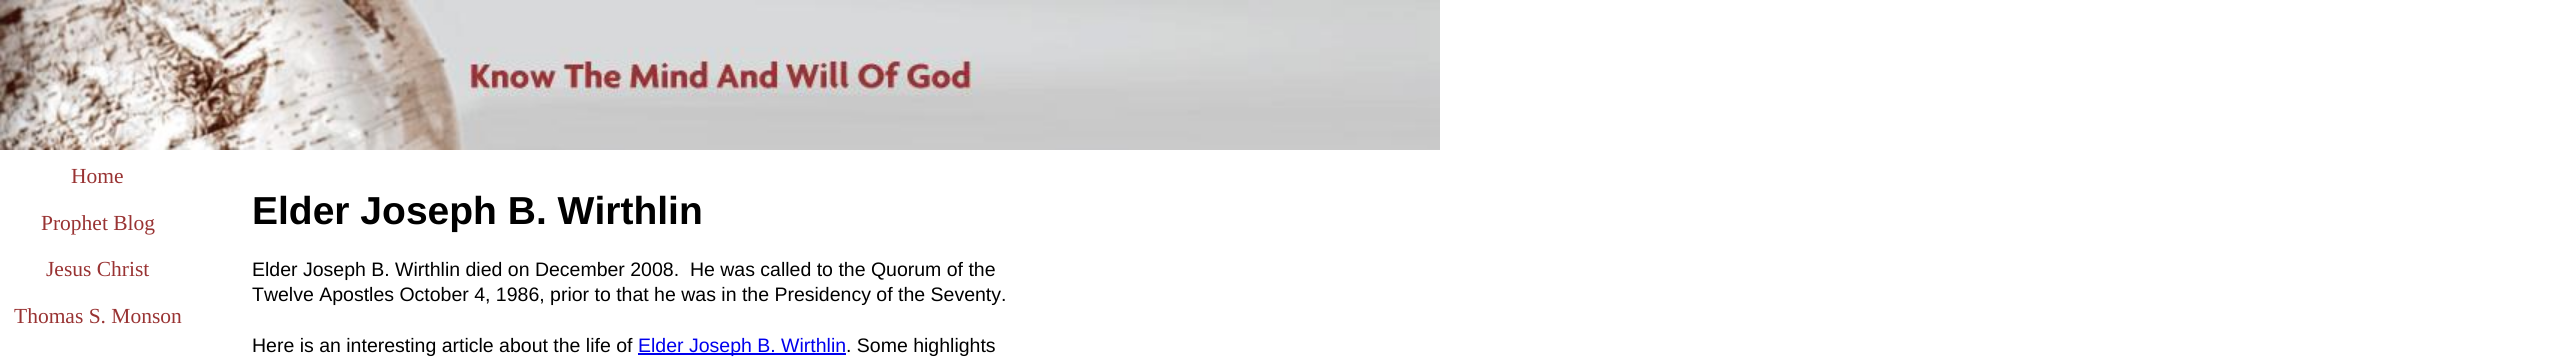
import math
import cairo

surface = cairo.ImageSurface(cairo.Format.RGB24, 2561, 358)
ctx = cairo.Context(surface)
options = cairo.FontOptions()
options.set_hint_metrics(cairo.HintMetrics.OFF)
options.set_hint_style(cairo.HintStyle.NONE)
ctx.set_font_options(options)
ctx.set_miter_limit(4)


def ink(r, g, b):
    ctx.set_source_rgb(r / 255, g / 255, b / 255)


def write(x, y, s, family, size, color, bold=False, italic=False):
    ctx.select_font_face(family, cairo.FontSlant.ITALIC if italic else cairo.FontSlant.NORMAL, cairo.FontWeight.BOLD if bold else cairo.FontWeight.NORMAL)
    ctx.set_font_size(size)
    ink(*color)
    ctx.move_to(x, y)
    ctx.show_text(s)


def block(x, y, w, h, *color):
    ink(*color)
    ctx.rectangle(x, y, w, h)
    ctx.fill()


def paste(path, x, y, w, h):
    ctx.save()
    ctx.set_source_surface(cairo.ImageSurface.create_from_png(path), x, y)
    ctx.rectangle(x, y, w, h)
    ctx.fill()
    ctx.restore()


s1 = dict(family="Liberation Serif", size=21.5, color=(153, 51, 51))
s2 = dict(family="Liberation Sans", size=39, color=(0, 0, 0), bold=True)
s3 = dict(family="Liberation Sans", size=19.5, color=(0, 0, 0))
s4 = dict(family="Liberation Sans", size=19.5, color=(0, 0, 238))

ink(255, 255, 255)
ctx.paint()
paste("pic1.png", 0, 0, 1440, 150)
write(71, 183, "Home", **s1)
write(41, 230, "Prophet Blog", **s1)
write(46, 276, "Jesus Christ", **s1)
write(14, 323, "Thomas S. Monson", **s1)
write(252, 224, "Elder Joseph B. Wirthlin", **s2)
write(252, 276, "Elder Joseph B. Wirthlin died on December 2008.  He was called to the Quorum of the", **s3)
write(252, 301, "Twelve Apostles October 4, 1986, prior to that he was in the Presidency of the Seventy.", **s3)
write(252, 352, "Here is an interesting article about the life of", **s3)
block(638, 353, 208, 2, 0, 0, 238)
write(638, 352, "Elder Joseph B. Wirthlin", **s4)
write(846, 352, ". Some highlights", **s3)
surface.write_to_png("screenshot.png")
